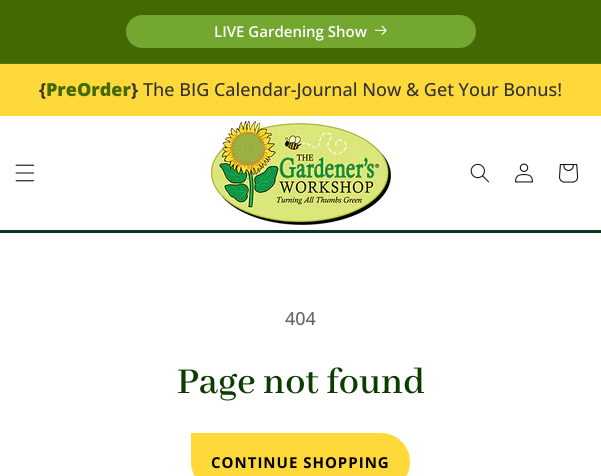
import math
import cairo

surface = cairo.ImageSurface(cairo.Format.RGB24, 601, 476)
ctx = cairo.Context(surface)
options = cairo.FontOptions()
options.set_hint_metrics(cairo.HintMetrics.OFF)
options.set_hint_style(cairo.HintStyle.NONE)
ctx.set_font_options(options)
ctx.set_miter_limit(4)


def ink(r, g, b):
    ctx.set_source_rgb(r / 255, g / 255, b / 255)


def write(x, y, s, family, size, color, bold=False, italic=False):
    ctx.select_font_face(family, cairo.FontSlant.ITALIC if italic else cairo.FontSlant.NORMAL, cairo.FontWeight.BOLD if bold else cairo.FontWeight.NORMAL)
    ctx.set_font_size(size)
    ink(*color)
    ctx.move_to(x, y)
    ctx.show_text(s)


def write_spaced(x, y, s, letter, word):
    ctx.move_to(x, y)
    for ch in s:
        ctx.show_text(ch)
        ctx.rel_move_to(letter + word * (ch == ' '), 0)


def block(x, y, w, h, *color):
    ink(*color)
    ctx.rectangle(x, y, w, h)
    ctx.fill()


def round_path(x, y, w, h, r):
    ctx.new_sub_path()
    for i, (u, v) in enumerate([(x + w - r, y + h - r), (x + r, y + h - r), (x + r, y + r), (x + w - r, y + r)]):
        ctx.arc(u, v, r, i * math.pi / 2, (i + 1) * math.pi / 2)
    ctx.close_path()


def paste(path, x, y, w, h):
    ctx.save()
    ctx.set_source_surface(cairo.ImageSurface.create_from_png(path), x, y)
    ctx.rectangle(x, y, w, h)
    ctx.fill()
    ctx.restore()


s1 = dict(family="Open Sans SemiBold", size=15, color=(255, 255, 255))
s2 = dict(family="Open Sans", size=18, color=(51, 51, 51), bold=True)
s3 = dict(family="Open Sans ExtraBold", size=18, color=(67, 105, 4))
s4 = dict(family="Open Sans Medium", size=18, color=(51, 51, 51))
s5 = dict(family="Open Sans Medium", size=18, color=(102, 102, 102))
s6 = dict(family="Abhaya Libre SemiBold SemiBold", size=40, color=(13, 60, 0))

ink(255, 255, 255)
ctx.paint()
block(0, 0, 601, 63, 67, 105, 4)
block(0, 63, 601, 1, 82, 117, 24)
ink(116, 167, 48)
round_path(126, 15, 350, 33, 16.5)
ctx.fill()
write(214, 37, "LIVE Gardening Show", **s1)
paste("pic1.png", 375, 25, 12, 11)
block(0, 64, 601, 52, 255, 217, 57)
write(39, 96, "{", **s2)
write(46, 96, "PreOrder", **s3)
write(131, 96, "}", **s2)
write(143, 96, "The BIG Calendar-Journal Now & Get Your Bonus!", **s4)
block(0, 230, 601, 3, 9, 55, 27)
paste("pic2.png", 15, 164, 20, 18)
paste("pic3.png", 211, 121, 180, 104)
paste("pic4.png", 470, 163, 19, 20)
paste("pic5.png", 515, 163, 18, 20)
paste("pic6.png", 559, 164, 20, 19)
write(285, 325, "404", **s5)
write(177, 393, "Page not found", **s6)
ink(255, 217, 57)
ctx.new_path()
ctx.move_to(191, 433)
ctx.line_to(381, 433)
ctx.curve_to(397, 433, 410, 446, 410, 462)
ctx.curve_to(410, 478, 397, 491, 381, 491)
ctx.line_to(220, 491)
ctx.curve_to(204, 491, 191, 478, 191, 462)
ctx.close_path()
ctx.fill()
ctx.select_font_face("Open Sans", cairo.FontSlant.NORMAL, cairo.FontWeight.BOLD)
ctx.set_font_size(15)
ink(0, 0, 0)
write_spaced(211, 468, "CONTINUE SHOPPING", 1, 0)
surface.write_to_png("screenshot.png")
